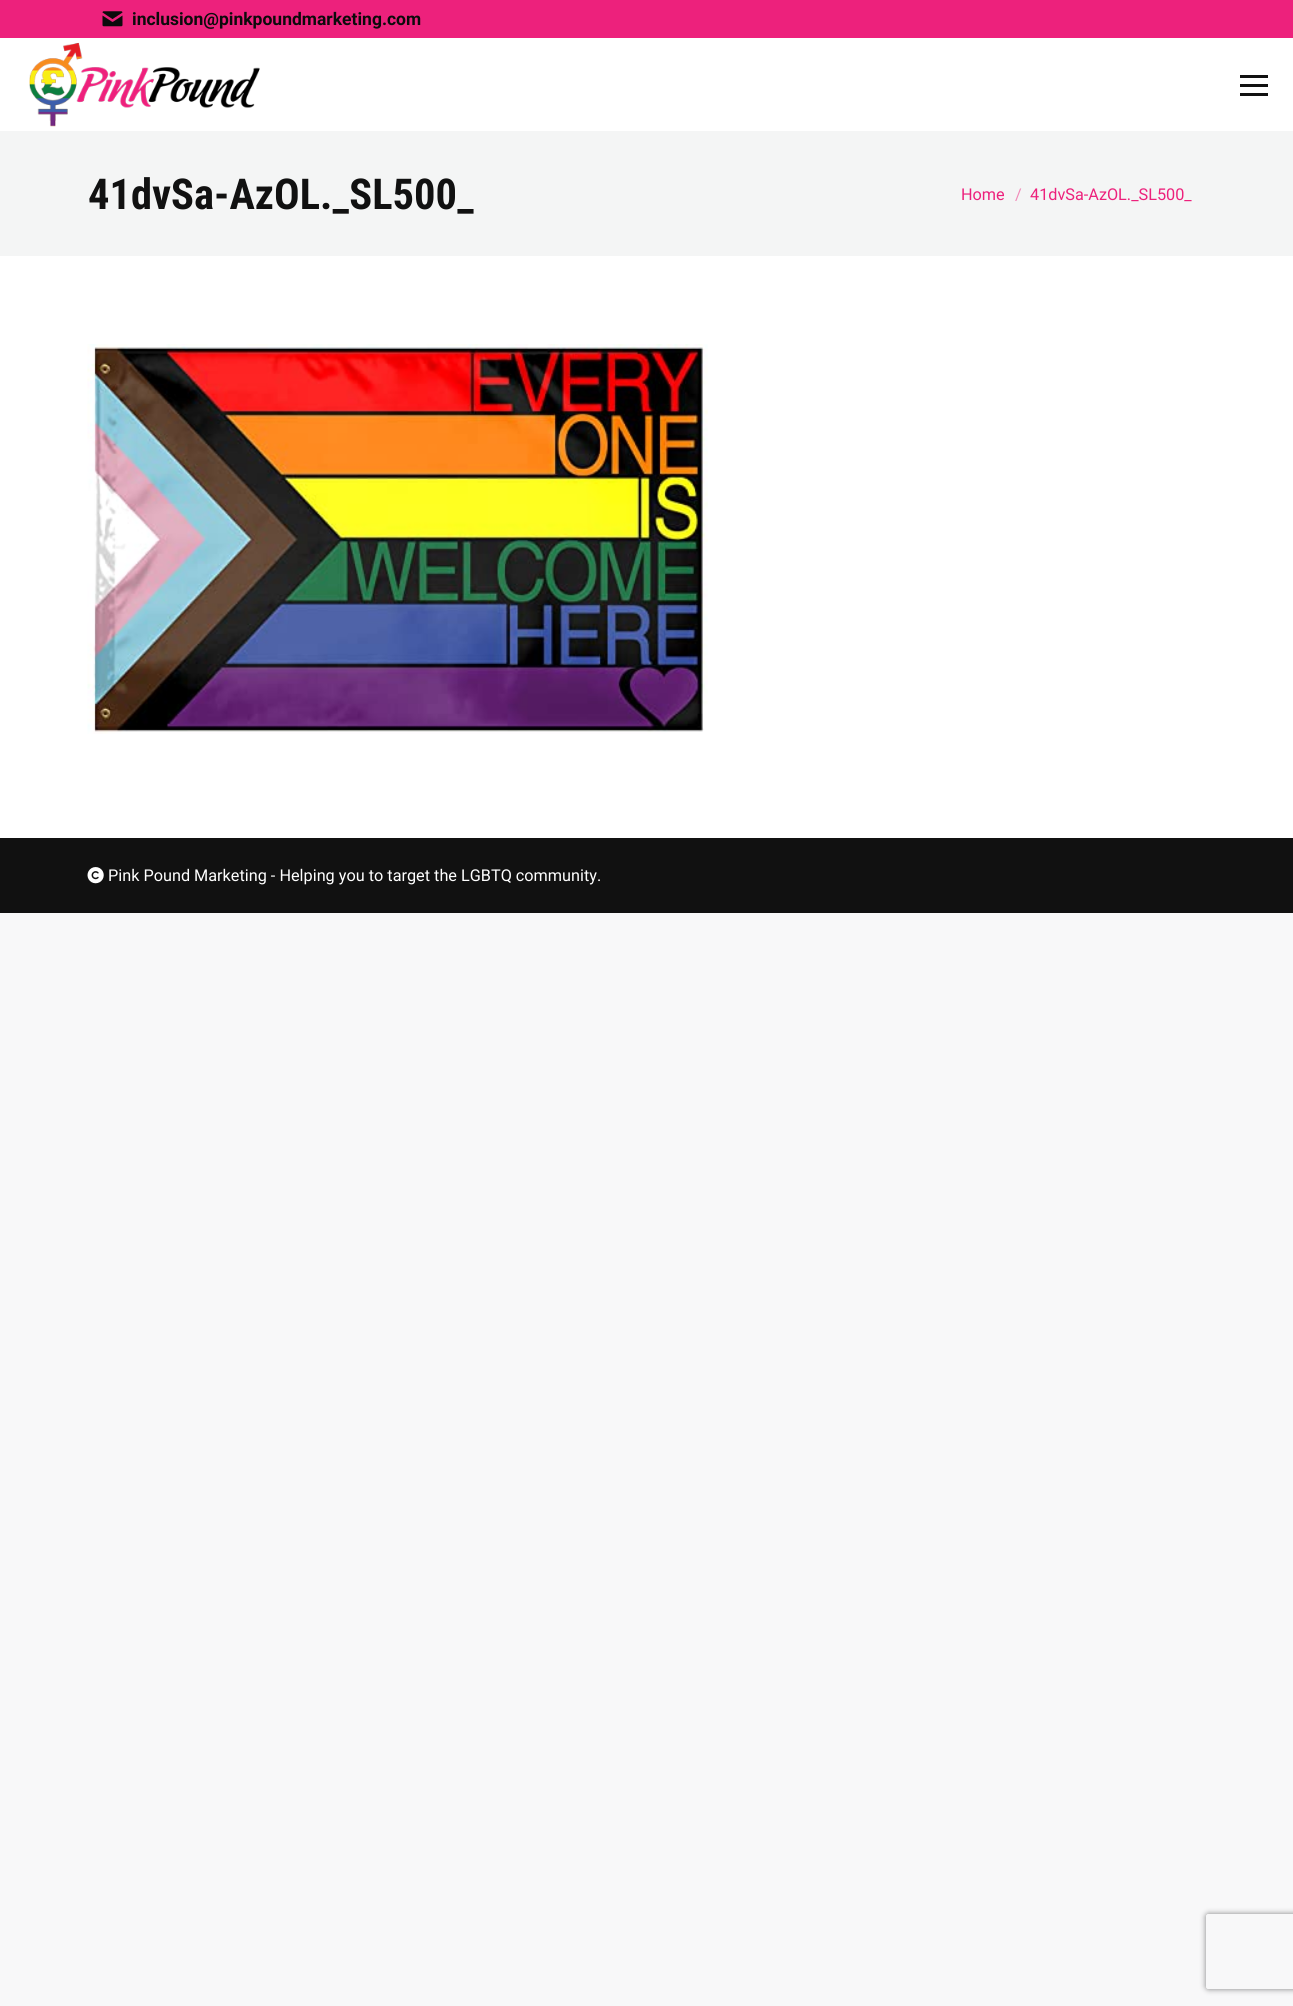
import math
import cairo

surface = cairo.ImageSurface(cairo.Format.RGB24, 1293, 2006)
ctx = cairo.Context(surface)
options = cairo.FontOptions()
options.set_hint_metrics(cairo.HintMetrics.OFF)
options.set_hint_style(cairo.HintStyle.NONE)
ctx.set_font_options(options)
ctx.set_miter_limit(4)


def ink(r, g, b):
    ctx.set_source_rgb(r / 255, g / 255, b / 255)


def write(x, y, s, family, size, color, bold=False, italic=False):
    ctx.select_font_face(family, cairo.FontSlant.ITALIC if italic else cairo.FontSlant.NORMAL, cairo.FontWeight.BOLD if bold else cairo.FontWeight.NORMAL)
    ctx.set_font_size(size)
    ink(*color)
    ctx.move_to(x, y)
    ctx.show_text(s)


def block(x, y, w, h, *color):
    ink(*color)
    ctx.rectangle(x, y, w, h)
    ctx.fill()


def round_path(x, y, w, h, r):
    ctx.new_sub_path()
    for i, (u, v) in enumerate([(x + w - r, y + h - r), (x + r, y + h - r), (x + r, y + r), (x + w - r, y + r)]):
        ctx.arc(u, v, r, i * math.pi / 2, (i + 1) * math.pi / 2)
    ctx.close_path()


def blur_box(x, y, w, h, r, blur, alpha):
    ctx.push_group_with_content(cairo.Content.ALPHA)
    ctx.set_operator(cairo.Operator.SOURCE)
    for i in range(15, -16, -2):
        e = blur * i / 6
        if min(w, h) + 2 * e > 0:
            ctx.set_source_rgba(0, 0, 0, alpha * math.erfc((i - 1) / 8.5) / 2)
            round_path(x - e, y - e, w + 2 * e, h + 2 * e, max(0, min(r + e + blur * .6, min(w, h) / 2 + e)))
            ctx.fill()
    ctx.mask(ctx.pop_group())


def paste(path, x, y, w, h):
    ctx.save()
    ctx.set_source_surface(cairo.ImageSurface.create_from_png(path), x, y)
    ctx.rectangle(x, y, w, h)
    ctx.fill()
    ctx.restore()


s1 = dict(family="Roboto", size=17.5, color=(12, 11, 11), bold=True)
s2 = dict(family="Roboto Condensed", size=42.5, color=(17, 17, 17), bold=True)
s3 = dict(family="Roboto", size=16.25, color=(237, 33, 124))
s4 = dict(family="Roboto", size=16.25, color=(241, 139, 185))
s5 = dict(family="Roboto", size=16.25, color=(255, 255, 255))

ink(248, 248, 249)
ctx.paint()
block(0, 38, 1293, 800, 255, 255, 255)
block(0, 0, 1293, 38, 237, 33, 124)
paste("pic1.png", 102, 11, 21, 16)
write(132, 25, "inclusion@pinkpoundmarketing.com", **s1)
paste("pic2.png", 29, 42, 231, 85)
block(1240, 75, 28, 3, 17, 17, 17)
block(1240, 84, 28, 3, 17, 17, 17)
block(1240, 93, 28, 3, 17, 17, 17)
block(0, 131, 1293, 125, 244, 245, 245)
write(88, 209, "41dvSa-AzOL._SL500_", **s2)
write(961, 200, "Home", **s3)
write(1015, 200, "/", **s4)
write(1030, 200, "41dvSa-AzOL._SL500_", **s3)
paste("pic3.png", 87, 344, 621, 390)
block(0, 838, 1293, 75, 17, 17, 17)
paste("pic4.png", 87, 867, 17, 17)
write(108, 881, "Pink Pound Marketing - Helping you to target the LGBTQ community.", **s5)
ctx.save()
ctx.set_fill_rule(cairo.FillRule.EVEN_ODD)
ctx.new_path()
ctx.move_to(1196, 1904)
ctx.line_to(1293, 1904)
ctx.line_to(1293, 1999)
ctx.line_to(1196, 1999)
ctx.close_path()
ctx.move_to(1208.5, 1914)
ctx.line_to(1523.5, 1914)
ctx.curve_to(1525, 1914, 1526, 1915, 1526, 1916.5)
ctx.line_to(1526, 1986.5)
ctx.curve_to(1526, 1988, 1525, 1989, 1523.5, 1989)
ctx.line_to(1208.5, 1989)
ctx.curve_to(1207, 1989, 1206, 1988, 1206, 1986.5)
ctx.line_to(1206, 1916.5)
ctx.curve_to(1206, 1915, 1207, 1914, 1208.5, 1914)
ctx.close_path()
ctx.clip()
ink(128, 128, 128)
blur_box(1206, 1914, 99, 75, 2.5, 3, 1)
ctx.restore()
surface.write_to_png("screenshot.png")
